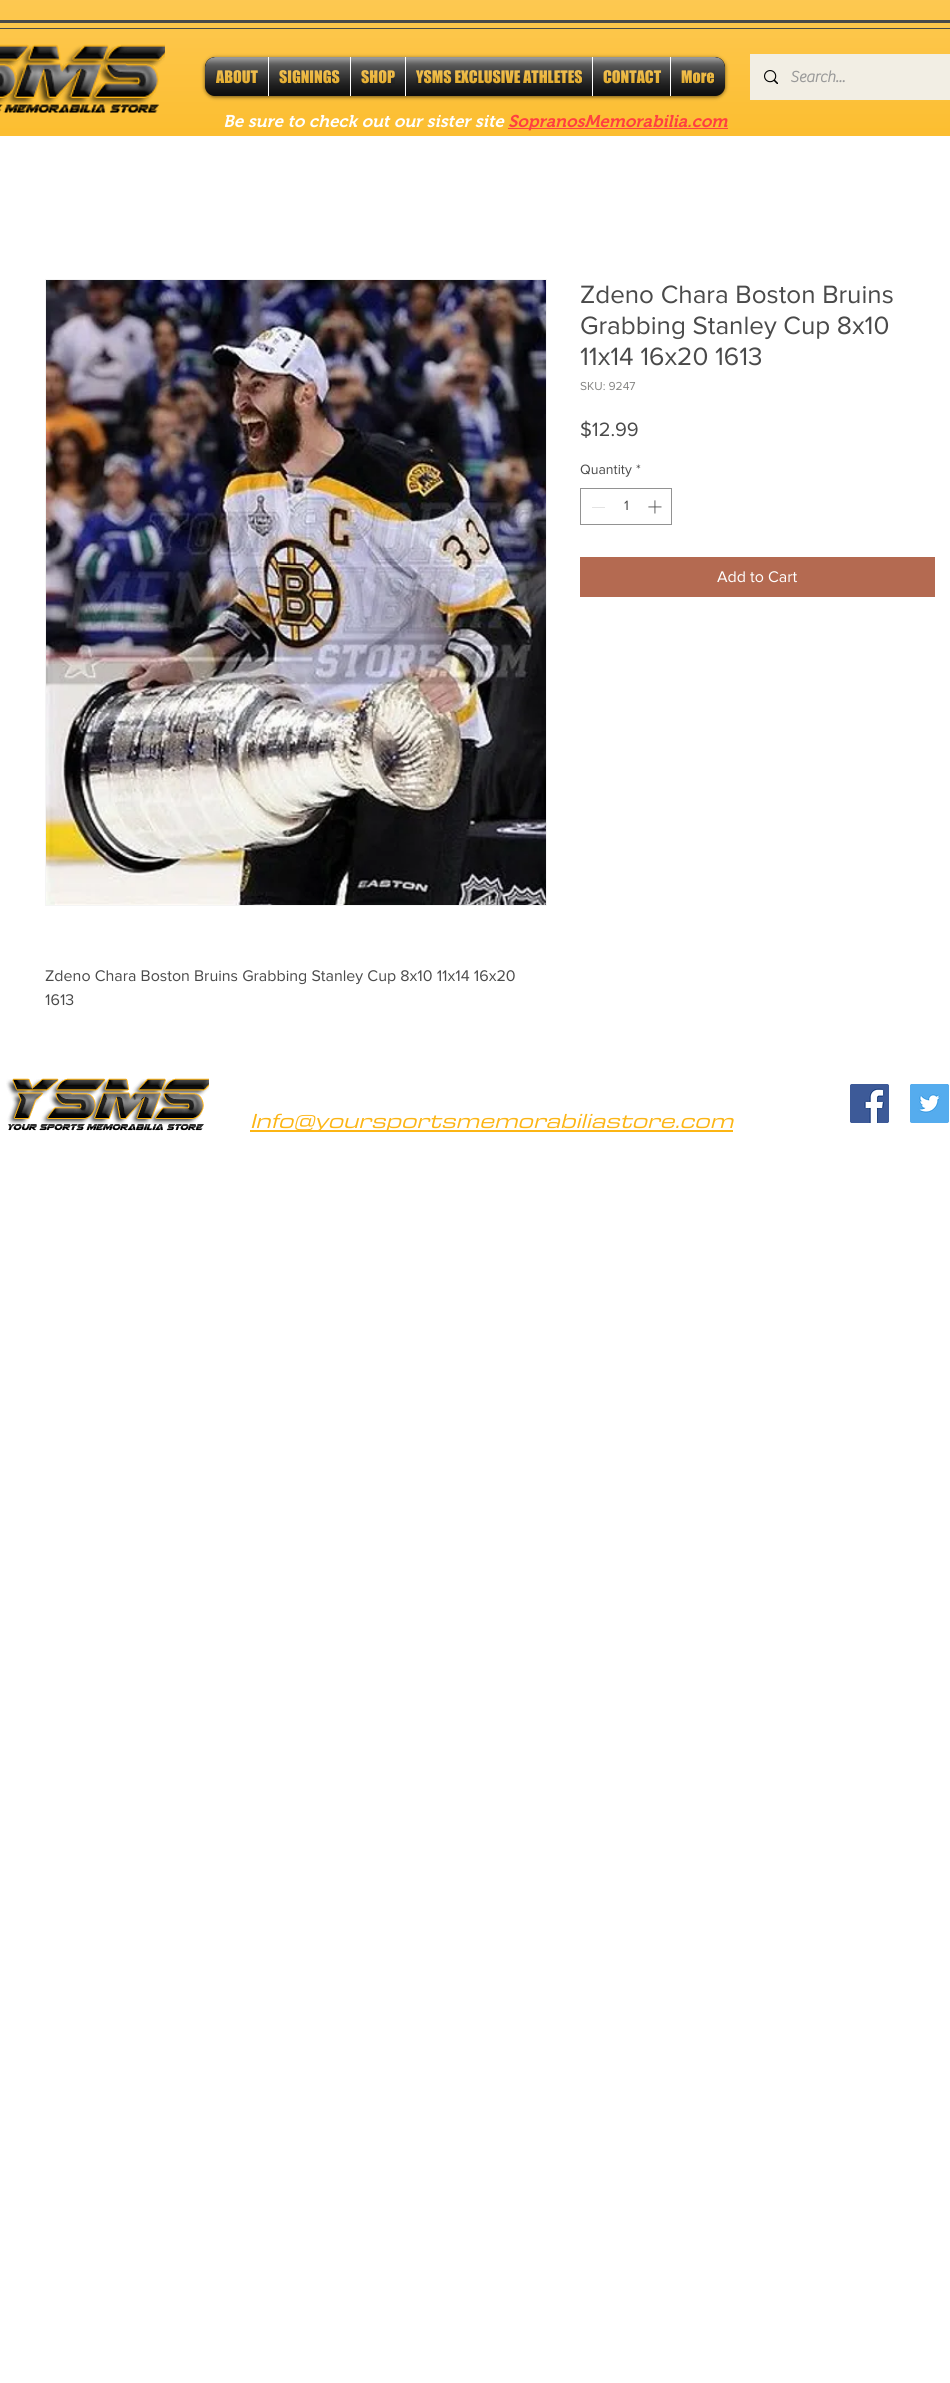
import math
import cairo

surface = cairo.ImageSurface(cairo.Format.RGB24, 950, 2383)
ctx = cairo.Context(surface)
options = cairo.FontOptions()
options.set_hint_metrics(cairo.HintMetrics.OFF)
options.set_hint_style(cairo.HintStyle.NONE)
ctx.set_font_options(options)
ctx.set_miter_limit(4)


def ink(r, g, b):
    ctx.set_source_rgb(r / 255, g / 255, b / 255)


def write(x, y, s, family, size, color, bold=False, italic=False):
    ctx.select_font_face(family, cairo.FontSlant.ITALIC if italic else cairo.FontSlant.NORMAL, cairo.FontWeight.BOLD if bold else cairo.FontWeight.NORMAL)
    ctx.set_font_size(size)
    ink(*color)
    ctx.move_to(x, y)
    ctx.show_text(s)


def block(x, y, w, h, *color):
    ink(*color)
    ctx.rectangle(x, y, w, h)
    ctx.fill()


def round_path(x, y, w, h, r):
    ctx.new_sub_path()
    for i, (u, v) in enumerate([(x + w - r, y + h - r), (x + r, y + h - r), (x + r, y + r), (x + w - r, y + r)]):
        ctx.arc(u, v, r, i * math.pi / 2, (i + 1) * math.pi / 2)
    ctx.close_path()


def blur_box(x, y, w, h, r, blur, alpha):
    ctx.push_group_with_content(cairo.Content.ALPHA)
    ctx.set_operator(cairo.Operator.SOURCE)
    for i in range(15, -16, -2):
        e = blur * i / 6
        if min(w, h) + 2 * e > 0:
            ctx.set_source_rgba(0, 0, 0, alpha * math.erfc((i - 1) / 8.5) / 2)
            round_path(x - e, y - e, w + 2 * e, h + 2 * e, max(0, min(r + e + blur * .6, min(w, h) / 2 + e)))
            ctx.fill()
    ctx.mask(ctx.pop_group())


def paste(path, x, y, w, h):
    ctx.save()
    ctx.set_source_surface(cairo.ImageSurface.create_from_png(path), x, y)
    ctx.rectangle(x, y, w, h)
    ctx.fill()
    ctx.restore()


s1 = dict(family="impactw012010", size=16, color=(252, 181, 20))
s2 = dict(family="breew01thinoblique", size=16, color=(153, 153, 153), bold=True)
s3 = dict(family="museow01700 SemiBold", size=17, color=(255, 255, 255), italic=True)
s4 = dict(family="museow01700 SemiBold", size=17, color=(255, 64, 64), italic=True)
s5 = dict(family="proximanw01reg", size=26, color=(74, 74, 74))
s6 = dict(family="proximanw01reg", size=12, color=(133, 133, 131))
s7 = dict(family="proximanw01reg", size=20, color=(74, 74, 74))
s8 = dict(family="proximanw01reg", size=14, color=(74, 74, 74))
s9 = dict(family="proximanw01reg", size=16, color=(255, 255, 255))
s10 = dict(family="proximanw01reg", size=16, color=(74, 74, 74))
s11 = dict(family="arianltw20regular", size=25, color=(252, 181, 20), italic=True)

ink(255, 255, 255)
ctx.paint()
block(0, 0, 950, 136, 252, 181, 20)
paste("pic1.png", 0, 0, 950, 136)
block(0, 20, 950, 3, 74, 74, 74)
block(0, 28, 950, 1, 74, 74, 74)
paste("pic2.png", 0, 44, 165, 69)
ink(0, 0, 0)
blur_box(205, 58, 520, 39, 10, 2, 0.6)
paste("pic3.png", 205, 57, 520, 39)
ink(0, 0, 0)
ctx.new_path()
ctx.move_to(215, 57)
ctx.line_to(268, 57)
ctx.line_to(268, 96)
ctx.line_to(215, 96)
ctx.curve_to(209.5, 96, 205, 91.5, 205, 86)
ctx.line_to(205, 67)
ctx.curve_to(205, 61.5, 209.5, 57, 215, 57)
ctx.close_path()
ctx.fill()
write(216, 83, "ABOUT", **s1)
paste("pic4.png", 205, 57, 63, 39)
paste("pic5.png", 215, 70, 43, 14)
block(269, 57, 81, 39, 0, 0, 0)
block(268, 57, 1, 39, 255, 255, 255)
write(279, 83, "SIGNINGS", **s1)
paste("pic6.png", 269, 57, 81, 39)
paste("pic7.png", 279, 70, 61, 14)
block(351, 57, 54, 39, 0, 0, 0)
block(350, 57, 1, 39, 255, 255, 255)
write(361, 83, "SHOP", **s1)
paste("pic8.png", 351, 57, 54, 39)
paste("pic9.png", 361, 70, 34, 14)
block(406, 57, 186, 39, 0, 0, 0)
block(405, 57, 1, 39, 255, 255, 255)
write(416, 83, "YSMS EXCLUSIVE ATHLETES", **s1)
paste("pic10.png", 406, 57, 186, 39)
paste("pic11.png", 416, 70, 167, 14)
block(593, 57, 77, 39, 0, 0, 0)
block(592, 57, 1, 39, 255, 255, 255)
write(603, 83, "CONTACT", **s1)
paste("pic12.png", 593, 57, 77, 39)
paste("pic13.png", 603, 70, 58, 14)
ink(0, 0, 0)
ctx.new_path()
ctx.move_to(670, 57)
ctx.line_to(715, 57)
ctx.curve_to(720.5, 57, 725, 61.5, 725, 67)
ctx.line_to(725, 86)
ctx.curve_to(725, 91.5, 720.5, 96, 715, 96)
ctx.line_to(670, 96)
ctx.close_path()
ctx.fill()
block(670, 57, 1, 39, 255, 255, 255)
write(681, 83, "More", **s1)
paste("pic14.png", 671, 57, 54, 39)
paste("pic15.png", 681, 70, 34, 14)
block(750, 54, 200, 46, 242, 238, 228)
paste("pic16.png", 764, 70, 14, 14)
write(790, 82, "Search...", **s2)
write(223, 127, "Be sure to check out our sister site", **s3)
block(508, 128, 220, 1, 255, 64, 64)
write(508, 127, "SopranosMemorabilia.com", **s4)
write(580, 303, "Zdeno Chara Boston Bruins", **s5)
write(580, 334, "Grabbing Stanley Cup 8x10", **s5)
write(580, 365, "11x14 16x20 1613", **s5)
write(580, 390, "SKU: 9247", **s6)
write(580, 436, "$12.99", **s7)
write(580, 474, "Quantity", **s8)
write(636, 474, "*", **s8)
ctx.rectangle(580.5, 488.5, 91, 36)
ink(146, 146, 146)
ctx.set_line_width(1)
ctx.stroke()
block(592, 507, 13, 1, 227, 227, 227)
write(624, 510, "1", **s8)
paste("pic17.png", 648, 500, 14, 14)
block(580, 557, 355, 40, 180, 106, 81)
write(717, 582, "Add to Cart", **s9)
ctx.rectangle(45.5, 279.5, 501, 626)
ink(245, 245, 245)
ctx.stroke()
paste("pic18.png", 46, 280, 500, 625)
write(45, 981, "Zdeno Chara Boston Bruins Grabbing Stanley Cup 8x10 11x14 16x20", **s10)
write(45, 1005, "1613", **s10)
paste("pic19.png", 6, 1078, 203, 53)
block(250, 1130, 483, 2, 252, 181, 20)
write(250, 1128, "Info@yoursportsmemorabiliastore.com", **s11)
paste("pic20.png", 850, 1084, 39, 39)
paste("pic21.png", 910, 1084, 39, 39)
surface.write_to_png("screenshot.png")
